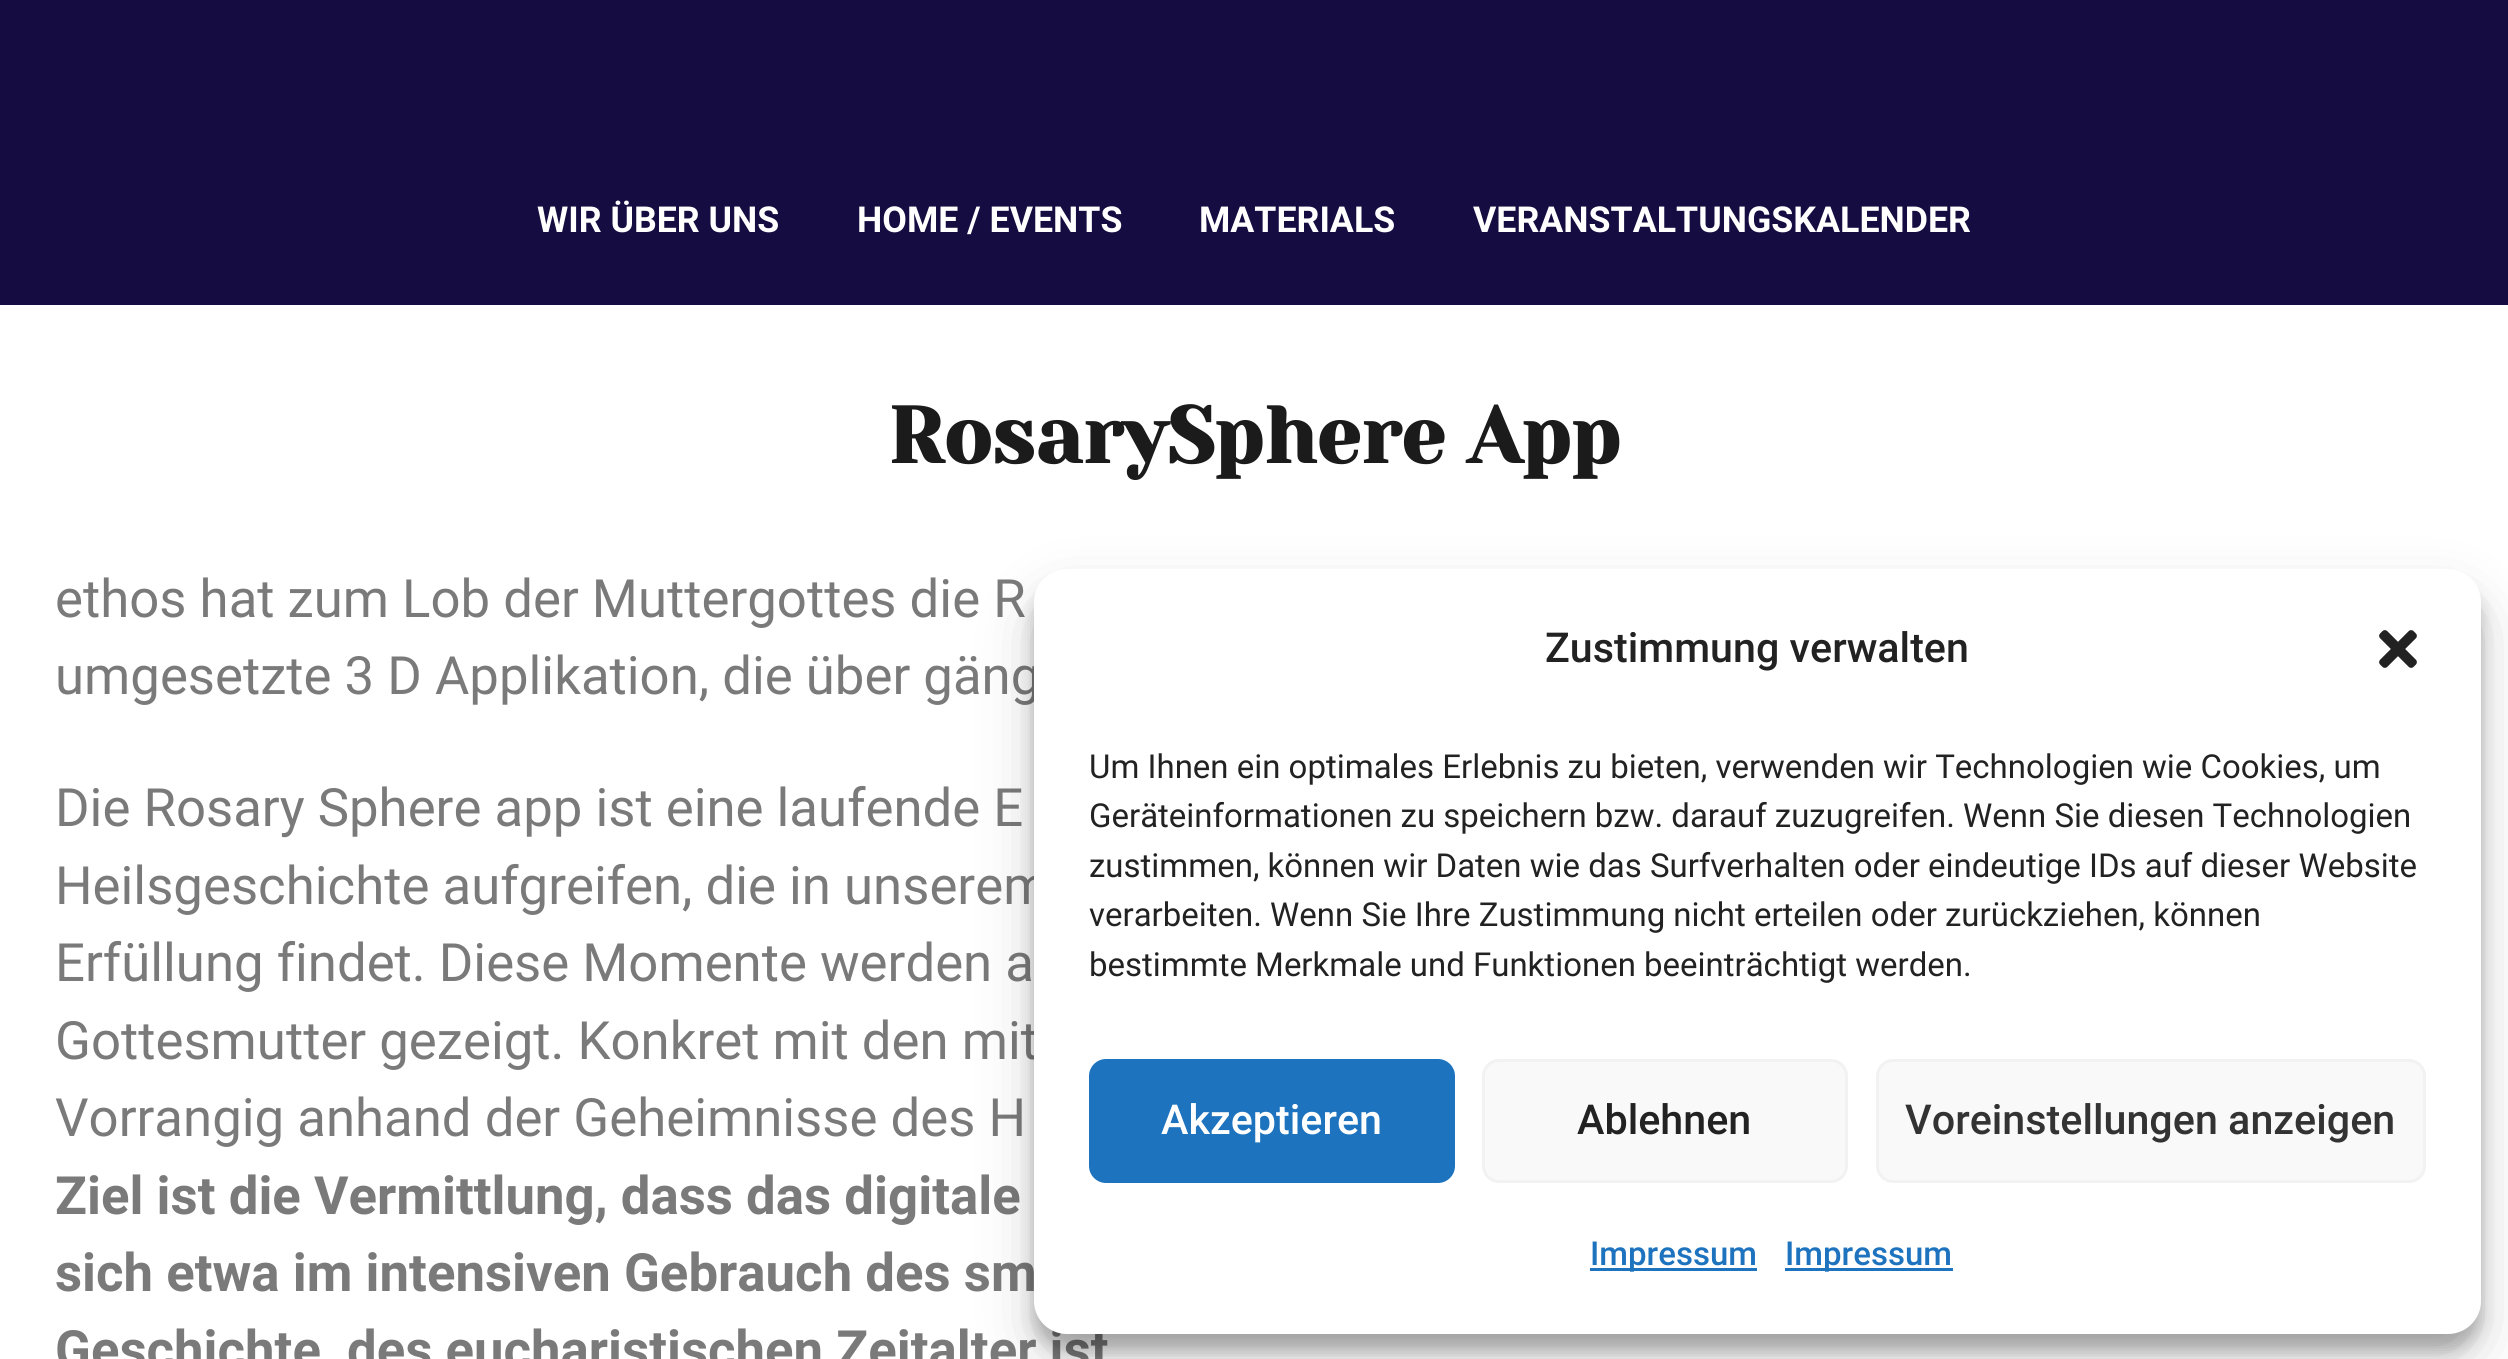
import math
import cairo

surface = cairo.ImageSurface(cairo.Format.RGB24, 2508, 1359)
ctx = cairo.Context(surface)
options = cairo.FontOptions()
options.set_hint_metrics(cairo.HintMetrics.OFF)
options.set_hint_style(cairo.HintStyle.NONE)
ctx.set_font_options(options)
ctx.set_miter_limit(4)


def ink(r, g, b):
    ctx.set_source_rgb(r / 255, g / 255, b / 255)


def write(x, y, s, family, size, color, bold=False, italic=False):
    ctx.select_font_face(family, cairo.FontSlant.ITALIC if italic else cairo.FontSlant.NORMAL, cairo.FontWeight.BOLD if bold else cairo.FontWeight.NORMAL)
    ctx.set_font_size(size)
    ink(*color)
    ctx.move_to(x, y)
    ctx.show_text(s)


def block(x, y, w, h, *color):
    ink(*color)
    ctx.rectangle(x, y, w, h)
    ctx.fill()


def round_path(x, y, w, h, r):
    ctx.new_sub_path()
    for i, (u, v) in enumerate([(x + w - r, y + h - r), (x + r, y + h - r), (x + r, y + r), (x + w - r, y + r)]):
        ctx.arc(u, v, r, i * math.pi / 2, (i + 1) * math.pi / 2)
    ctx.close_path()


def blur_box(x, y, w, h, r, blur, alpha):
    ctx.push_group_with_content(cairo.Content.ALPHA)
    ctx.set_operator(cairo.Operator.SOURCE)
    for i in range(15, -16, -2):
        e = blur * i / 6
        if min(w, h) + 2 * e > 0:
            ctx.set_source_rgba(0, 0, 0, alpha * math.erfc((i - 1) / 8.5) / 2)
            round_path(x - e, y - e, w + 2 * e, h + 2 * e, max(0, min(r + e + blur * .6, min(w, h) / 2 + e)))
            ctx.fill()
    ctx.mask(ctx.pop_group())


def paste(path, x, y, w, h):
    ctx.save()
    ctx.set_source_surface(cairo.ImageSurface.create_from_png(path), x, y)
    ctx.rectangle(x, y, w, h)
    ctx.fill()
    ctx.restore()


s1 = dict(family="Roboto", size=35.75, color=(255, 255, 255), bold=True)
s2 = dict(family="Yeseva One", size=79.25, color=(27, 27, 27), bold=True)
s3 = dict(family="Roboto", size=52.75, color=(122, 122, 122))
s4 = dict(family="Roboto", size=52.75, color=(122, 122, 122), bold=True)
s5 = dict(family="Roboto Medium", size=41.25, color=(34, 34, 34))
s6 = dict(family="Roboto", size=33, color=(34, 34, 34))
s7 = dict(family="Roboto Medium", size=41.25, color=(255, 255, 255))
s8 = dict(family="Roboto Medium", size=41.25, color=(51, 51, 51))
s9 = dict(family="Roboto Medium", size=33, color=(30, 115, 190))

ink(255, 255, 255)
ctx.paint()
block(0, 0, 2508, 305, 21, 12, 65)
write(537, 232, "WIR ÜBER UNS", **s1)
write(857, 232, "HOME / EVENTS", **s1)
write(1199, 232, "MATERIALS", **s1)
write(1473, 232, "VERANSTALTUNGSKALENDER", **s1)
write(888, 463, "RosarySphere App", **s2)
write(55, 617, "ethos hat zum Lob der Muttergottes die R", **s3)
write(55, 694, "umgesetzte 3 D Applikation, die über gäng", **s3)
write(55, 826, "Die Rosary Sphere app ist eine laufende E", **s3)
write(55, 904, "Heilsgeschichte aufgreifen, die in unserem", **s3)
write(55, 981, "Erfüllung findet. Diese Momente werden a", **s3)
write(55, 1059, "Gottesmutter gezeigt. Konkret mit den mit", **s3)
write(55, 1136, "Vorrangig anhand der Geheimnisse des H", **s3)
write(55, 1214, "Ziel ist die Vermittlung, dass das digitale", **s4)
write(55, 1291, "sich etwa im intensiven Gebrauch des sm", **s4)
write(55, 1368, "Geschichte, des eucharistischen Zeitalter ist", **s4)
ink(0, 0, 0)
blur_box(1034, 586, 1447, 764, 33, 8, 0.23)
blur_box(1034, 597, 1447, 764, 33, 27.5, 0.19)
ink(255, 255, 255)
round_path(1034, 569, 1447, 765, 33)
ctx.fill()
write(1545, 662, "Zustimmung verwalten", **s5)
paste("pic1.png", 2379, 630, 38, 38)
write(1089, 778, "Um Ihnen ein optimales Erlebnis zu bieten, verwenden wir Technologien wie Cookies, um", **s6)
write(1089, 827, "Geräteinformationen zu speichern bzw. darauf zuzugreifen. Wenn Sie diesen Technologien", **s6)
write(1089, 877, "zustimmen, können wir Daten wie das Surfverhalten oder eindeutige IDs auf dieser Website", **s6)
write(1089, 926, "verarbeiten. Wenn Sie Ihre Zustimmung nicht erteilen oder zurückziehen, können", **s6)
write(1089, 976, "bestimmte Merkmale und Funktionen beeinträchtigt werden.", **s6)
ink(30, 115, 190)
round_path(1090.5, 1060.5, 363, 121, 15.5)
ctx.fill_preserve()
ctx.set_line_width(3)
ctx.stroke()
write(1161, 1134, "Akzeptieren", **s7)
ink(249, 249, 249)
round_path(1483.5, 1060.5, 363, 121, 15.5)
ctx.fill_preserve()
ink(242, 242, 242)
ctx.stroke()
write(1577, 1134, "Ablehnen", **s5)
ink(249, 249, 249)
round_path(1877.5, 1060.5, 547, 121, 15.5)
ctx.fill_preserve()
ink(242, 242, 242)
ctx.stroke()
write(1905, 1134, "Voreinstellungen anzeigen", **s8)
block(1590, 1268, 167, 3, 30, 115, 190)
write(1590, 1265, "Impressum", **s9)
block(1785, 1268, 168, 3, 30, 115, 190)
write(1785, 1265, "Impressum", **s9)
surface.write_to_png("screenshot.png")
